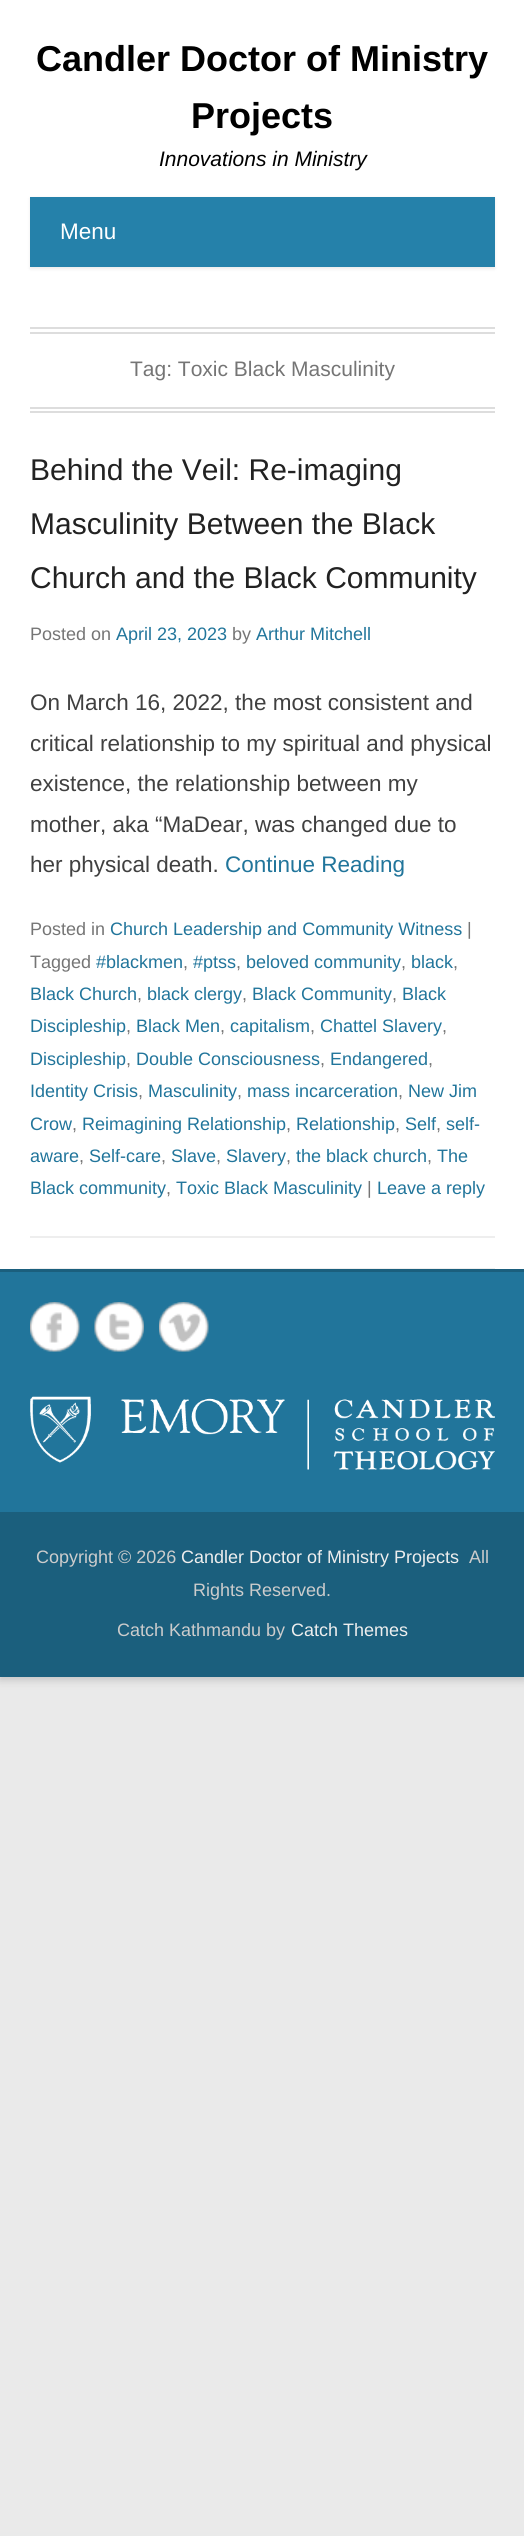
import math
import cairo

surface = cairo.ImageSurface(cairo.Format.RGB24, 524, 2536)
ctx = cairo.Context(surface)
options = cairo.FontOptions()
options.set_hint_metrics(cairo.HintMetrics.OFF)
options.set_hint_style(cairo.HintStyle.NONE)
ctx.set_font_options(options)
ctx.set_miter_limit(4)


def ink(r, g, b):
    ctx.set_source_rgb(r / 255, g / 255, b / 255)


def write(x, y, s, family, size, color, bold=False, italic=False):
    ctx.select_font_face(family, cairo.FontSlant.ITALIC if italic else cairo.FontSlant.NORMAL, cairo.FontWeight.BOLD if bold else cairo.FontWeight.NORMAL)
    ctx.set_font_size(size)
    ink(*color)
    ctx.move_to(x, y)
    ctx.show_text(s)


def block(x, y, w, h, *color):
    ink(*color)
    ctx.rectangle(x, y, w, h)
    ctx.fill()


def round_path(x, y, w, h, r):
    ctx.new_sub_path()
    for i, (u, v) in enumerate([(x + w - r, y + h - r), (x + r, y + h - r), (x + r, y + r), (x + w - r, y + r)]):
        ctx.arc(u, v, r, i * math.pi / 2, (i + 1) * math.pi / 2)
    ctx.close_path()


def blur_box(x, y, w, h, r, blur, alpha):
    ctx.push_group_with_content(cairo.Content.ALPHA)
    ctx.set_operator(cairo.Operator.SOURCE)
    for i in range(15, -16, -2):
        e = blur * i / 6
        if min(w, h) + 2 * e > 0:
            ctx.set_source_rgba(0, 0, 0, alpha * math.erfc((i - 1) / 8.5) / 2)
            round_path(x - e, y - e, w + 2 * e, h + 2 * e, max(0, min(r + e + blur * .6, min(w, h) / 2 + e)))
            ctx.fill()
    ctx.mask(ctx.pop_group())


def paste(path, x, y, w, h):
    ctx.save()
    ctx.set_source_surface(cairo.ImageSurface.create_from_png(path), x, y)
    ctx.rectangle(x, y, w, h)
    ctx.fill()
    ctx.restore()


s1 = dict(family="Liberation Sans", size=36, color=(0, 0, 0), bold=True)
s2 = dict(family="Liberation Sans", size=21, color=(0, 0, 0), italic=True)
s3 = dict(family="Liberation Sans", size=22.5, color=(255, 255, 255))
s4 = dict(family="Liberation Sans", size=21, color=(117, 117, 117))
s5 = dict(family="Liberation Sans", size=30, color=(34, 34, 34))
s6 = dict(family="Liberation Sans", size=18, color=(117, 117, 117))
s7 = dict(family="Liberation Sans", size=18, color=(33, 117, 155))
s8 = dict(family="Liberation Sans", size=22.5, color=(64, 64, 64))
s9 = dict(family="Liberation Sans", size=22.5, color=(33, 117, 155))
s10 = dict(family="Liberation Sans", size=18, color=(204, 204, 204))
s11 = dict(family="Liberation Sans", size=18, color=(238, 238, 238))

ink(234, 234, 234)
ctx.paint()
ink(100, 100, 100)
blur_box(0, 3, 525, 1677, 0, 4.5, 0.3)
block(0, 0, 524, 1269, 255, 255, 255)
write(36, 71, "Candler Doctor of Ministry", **s1)
write(191, 128, "Projects", **s1)
write(159, 166, "Innovations in Ministry", **s2)
ink(64, 64, 64)
blur_box(30, 198, 465, 71, 0, 1.5, 0.1)
block(30, 197, 465, 70, 37, 129, 170)
write(60, 239, "Menu", **s3)
block(30, 1268, 465, 1, 238, 238, 238)
block(30, 327, 465, 2, 221, 221, 221)
block(30, 332, 465, 2, 221, 221, 221)
block(30, 407, 465, 2, 221, 221, 221)
block(30, 411, 465, 2, 221, 221, 221)
write(130, 376, "Tag: Toxic Black Masculinity", **s4)
block(30, 1236, 465, 2, 238, 238, 238)
write(30, 480, "Behind the Veil: Re-imaging", **s5)
write(30, 534, "Masculinity Between the Black", **s5)
write(30, 588, "Church and the Black Community", **s5)
write(30, 640, "Posted on", **s6)
write(116, 640, "April 23, 2023", **s7)
write(232, 640, "by", **s6)
write(256, 640, "Arthur Mitchell", **s7)
write(30, 710, "On March 16, 2022, the most consistent and", **s8)
write(30, 751, "critical relationship to my spiritual and physical", **s8)
write(30, 791, "existence, the relationship between my", **s8)
write(30, 832, "mother, aka “MaDear, was changed due to", **s8)
write(30, 872, "her physical death.", **s8)
write(225, 872, "Continue Reading", **s9)
write(30, 935, "Posted in", **s6)
write(110, 935, "Church Leadership and Community Witness", **s7)
write(467, 935, "|", **s6)
write(30, 968, "Tagged", **s6)
write(96, 968, "#blackmen", **s7)
write(183, 968, ",", **s6)
write(193, 968, "#ptss", **s7)
write(236, 968, ",", **s6)
write(246, 968, "beloved community", **s7)
write(401, 968, ",", **s6)
write(411, 968, "black", **s7)
write(453, 968, ",", **s6)
write(30, 1000, "Black Church", **s7)
write(137, 1000, ",", **s6)
write(147, 1000, "black clergy", **s7)
write(242, 1000, ",", **s6)
write(252, 1000, "Black Community", **s7)
write(392, 1000, ",", **s6)
write(402, 1000, "Black", **s7)
write(30, 1032, "Discipleship", **s7)
write(126, 1032, ",", **s6)
write(136, 1032, "Black Men", **s7)
write(220, 1032, ",", **s6)
write(230, 1032, "capitalism", **s7)
write(310, 1032, ",", **s6)
write(320, 1032, "Chattel Slavery", **s7)
write(442, 1032, ",", **s6)
write(30, 1065, "Discipleship", **s7)
write(126, 1065, ",", **s6)
write(136, 1065, "Double Consciousness", **s7)
write(320, 1065, ",", **s6)
write(330, 1065, "Endangered", **s7)
write(428, 1065, ",", **s6)
write(30, 1097, "Identity Crisis", **s7)
write(138, 1097, ",", **s6)
write(148, 1097, "Masculinity", **s7)
write(237, 1097, ",", **s6)
write(247, 1097, "mass incarceration", **s7)
write(398, 1097, ",", **s6)
write(408, 1097, "New Jim", **s7)
write(30, 1130, "Crow", **s7)
write(72, 1130, ",", **s6)
write(82, 1130, "Reimagining Relationship", **s7)
write(286, 1130, ",", **s6)
write(296, 1130, "Relationship", **s7)
write(395, 1130, ",", **s6)
write(405, 1130, "Self", **s7)
write(436, 1130, ",", **s6)
write(446, 1130, "self-", **s7)
write(30, 1162, "aware", **s7)
write(79, 1162, ",", **s6)
write(89, 1162, "Self-care", **s7)
write(161, 1162, ",", **s6)
write(171, 1162, "Slave", **s7)
write(216, 1162, ",", **s6)
write(226, 1162, "Slavery", **s7)
write(286, 1162, ",", **s6)
write(296, 1162, "the black church", **s7)
write(427, 1162, ",", **s6)
write(437, 1162, "The", **s7)
write(30, 1194, "Black community", **s7)
write(166, 1194, ",", **s6)
write(176, 1194, "Toxic Black Masculinity", **s7)
write(367, 1194, "|", **s6)
write(377, 1194, "Leave a reply", **s7)
block(0, 1269, 524, 3, 27, 95, 125)
block(0, 1272, 524, 240, 33, 117, 155)
paste("pic1.png", 30, 1302, 50, 50)
paste("pic2.png", 94, 1302, 50, 50)
paste("pic3.png", 159, 1302, 50, 50)
paste("pic4.png", 30, 1396, 465, 74)
block(0, 1512, 524, 165, 27, 95, 125)
write(36, 1563, "Copyright © 2026", **s10)
write(181, 1563, "Candler Doctor of Ministry Projects", **s11)
write(469, 1563, "All", **s10)
write(193, 1596, "Rights Reserved.", **s10)
write(117, 1636, "Catch Kathmandu by", **s10)
write(291, 1636, "Catch Themes", **s11)
surface.write_to_png("screenshot.png")
